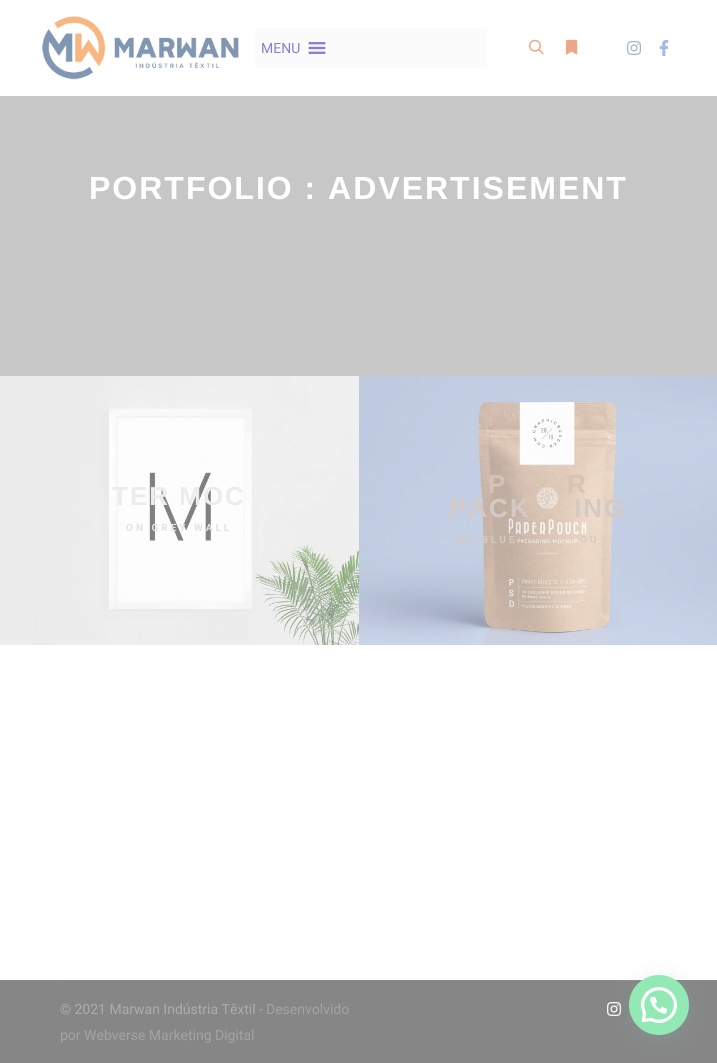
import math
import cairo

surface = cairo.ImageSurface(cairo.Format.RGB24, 717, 1063)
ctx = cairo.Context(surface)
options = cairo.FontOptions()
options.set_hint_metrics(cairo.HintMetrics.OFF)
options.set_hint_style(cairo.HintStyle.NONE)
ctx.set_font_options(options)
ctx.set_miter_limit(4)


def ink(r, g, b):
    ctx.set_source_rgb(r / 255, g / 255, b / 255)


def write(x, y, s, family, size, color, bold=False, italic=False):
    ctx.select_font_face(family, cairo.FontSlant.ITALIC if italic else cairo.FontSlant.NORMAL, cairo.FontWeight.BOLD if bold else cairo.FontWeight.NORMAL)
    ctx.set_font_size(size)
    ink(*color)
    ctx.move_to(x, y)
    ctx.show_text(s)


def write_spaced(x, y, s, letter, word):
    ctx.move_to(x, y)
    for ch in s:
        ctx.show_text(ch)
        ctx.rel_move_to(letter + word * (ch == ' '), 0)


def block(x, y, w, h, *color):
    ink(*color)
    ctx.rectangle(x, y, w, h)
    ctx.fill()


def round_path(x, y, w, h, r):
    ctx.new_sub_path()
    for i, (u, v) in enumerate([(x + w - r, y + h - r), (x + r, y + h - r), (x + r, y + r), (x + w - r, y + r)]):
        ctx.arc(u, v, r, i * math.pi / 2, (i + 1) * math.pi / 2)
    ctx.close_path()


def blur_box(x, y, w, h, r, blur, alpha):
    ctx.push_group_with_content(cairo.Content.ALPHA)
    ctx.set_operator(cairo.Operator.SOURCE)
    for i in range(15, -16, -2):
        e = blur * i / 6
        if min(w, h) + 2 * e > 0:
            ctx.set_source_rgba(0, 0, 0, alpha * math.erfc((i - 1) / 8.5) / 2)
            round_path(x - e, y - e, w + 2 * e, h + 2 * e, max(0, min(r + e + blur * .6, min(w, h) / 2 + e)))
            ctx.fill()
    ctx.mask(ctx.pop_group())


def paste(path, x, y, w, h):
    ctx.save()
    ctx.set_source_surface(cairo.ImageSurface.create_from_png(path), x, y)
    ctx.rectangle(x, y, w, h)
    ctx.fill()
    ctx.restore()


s1 = dict(family="Roboto", size=14, color=(130, 129, 215))
s2 = dict(family="Roboto", size=14, color=(172, 172, 172))
s3 = dict(family="Roboto", size=14, color=(163, 163, 163))

ink(255, 255, 255)
ctx.paint()
paste("pic1.png", 42, 16, 197, 64)
ink(251, 251, 251)
round_path(255, 28, 232, 40, 2)
ctx.fill()
write(261, 53, "MENU", **s1)
paste("pic2.png", 308, 42, 18, 12)
paste("pic3.png", 529, 39, 15, 16)
paste("pic4.png", 566, 39, 12, 16)
paste("pic5.png", 627, 41, 15, 14)
paste("pic6.png", 659, 40, 10, 16)
block(0, 96, 717, 280, 199, 199, 199)
ctx.select_font_face("Liberation Sans", cairo.FontSlant.NORMAL, cairo.FontWeight.BOLD)
ctx.set_font_size(32)
ink(255, 255, 255)
write_spaced(89, 199, "PORTFOLIO : ADVERTISEMENT", 2, 0)
paste("pic7.png", 0, 376, 359, 269)
ctx.set_font_size(26)
ink(236, 236, 236)
write_spaced(112, 505, "TER MOC", 2, 0)
ctx.select_font_face("Roboto", cairo.FontSlant.NORMAL, cairo.FontWeight.BOLD)
ctx.set_font_size(10)
ink(227, 227, 227)
write_spaced(126, 531, "ON GREY WALL", 3, 0)
paste("pic8.png", 359, 376, 358, 269)
ctx.select_font_face("Liberation Sans", cairo.FontSlant.NORMAL, cairo.FontWeight.BOLD)
ctx.set_font_size(26)
ink(215, 194, 179)
write_spaced(488, 493, "P", 2, 0)
write_spaced(567, 493, "R", 2, 0)
ink(213, 201, 196)
write_spaced(449, 517, "PACK", 2, 0)
write_spaced(574, 517, "ING", 2, 0)
ctx.select_font_face("Roboto", cairo.FontSlant.NORMAL, cairo.FontWeight.BOLD)
ctx.set_font_size(10)
write_spaced(456, 543, "ON BLUE", 3, 0)
write_spaced(580, 543, "OU", 3, 0)
block(0, 980, 717, 83, 134, 134, 134)
block(60, 980, 583, 1, 141, 141, 141)
write(60, 1014, "© 2021 Marwan Indústria Têxtil -", **s2)
write(266, 1014, "Desenvolvido", **s3)
write(60, 1040, "por Webverse Marketing Digital", **s3)
paste("pic9.png", 607, 1002, 15, 14)
ink(131, 175, 170)
blur_box(630, 981, 60, 60, 30, 12, 0.24)
ink(146, 233, 179)
ctx.arc(659, 1005, 30, 0, 2 * math.pi)
ctx.fill()
paste("pic10.png", 641, 987, 36, 36)
surface.write_to_png("screenshot.png")
